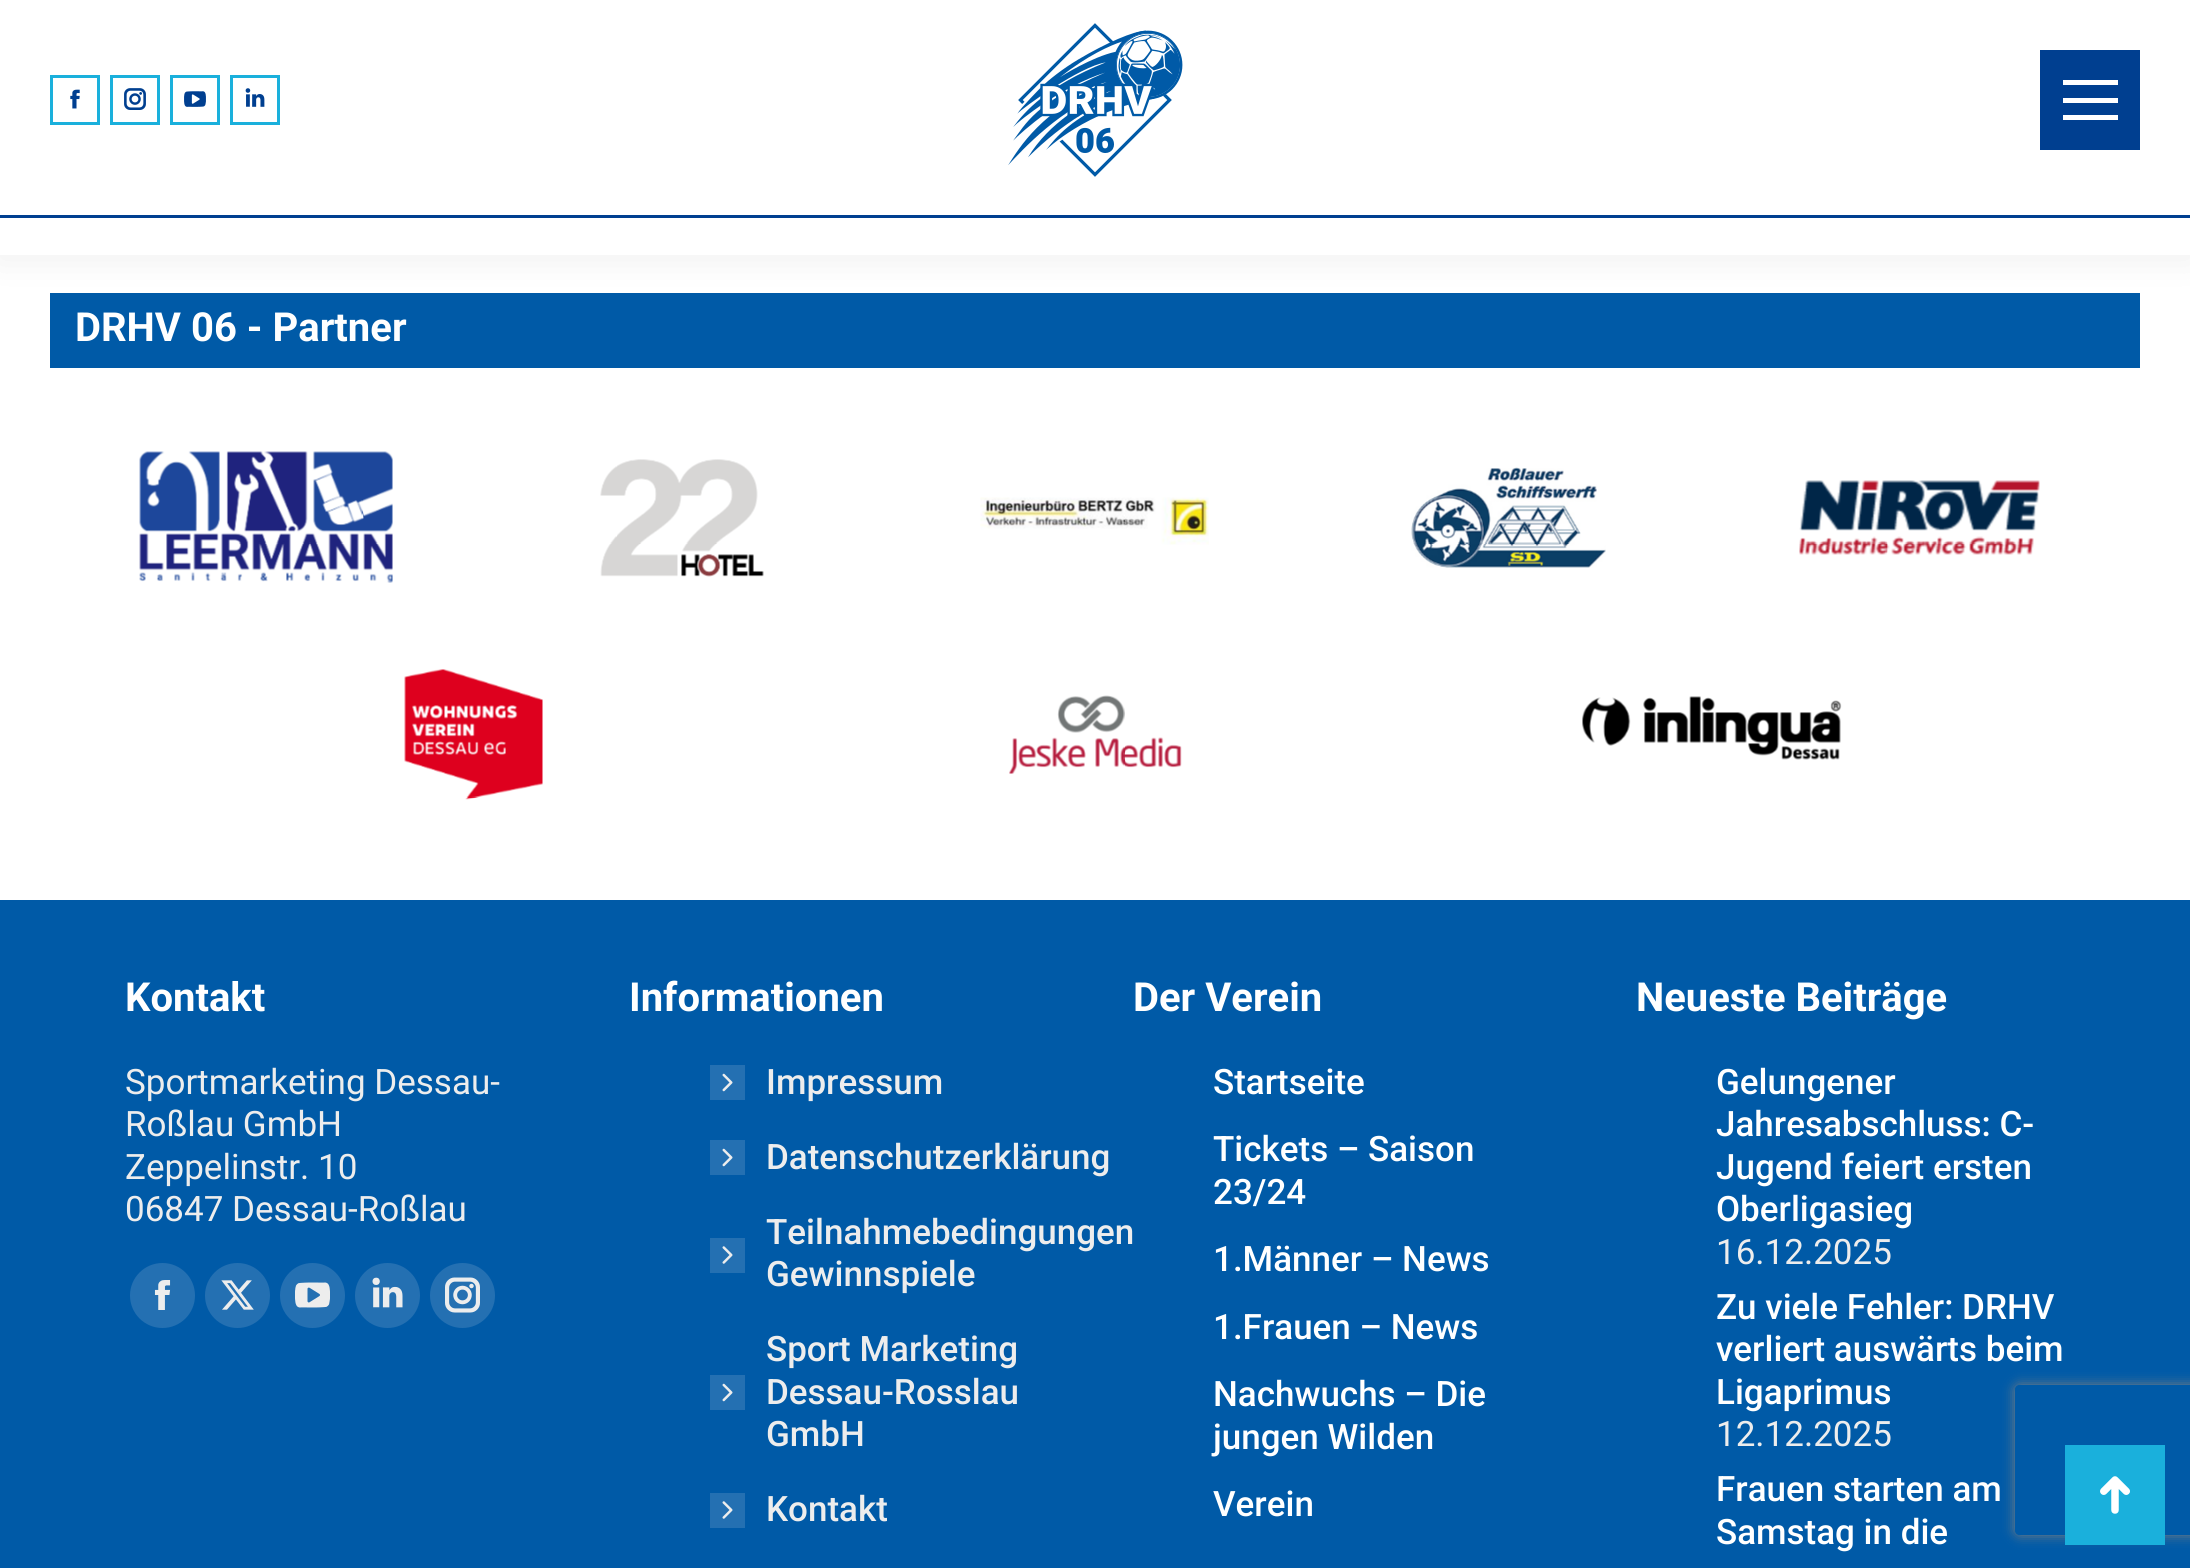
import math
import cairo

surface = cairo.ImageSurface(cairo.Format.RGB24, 2190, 1568)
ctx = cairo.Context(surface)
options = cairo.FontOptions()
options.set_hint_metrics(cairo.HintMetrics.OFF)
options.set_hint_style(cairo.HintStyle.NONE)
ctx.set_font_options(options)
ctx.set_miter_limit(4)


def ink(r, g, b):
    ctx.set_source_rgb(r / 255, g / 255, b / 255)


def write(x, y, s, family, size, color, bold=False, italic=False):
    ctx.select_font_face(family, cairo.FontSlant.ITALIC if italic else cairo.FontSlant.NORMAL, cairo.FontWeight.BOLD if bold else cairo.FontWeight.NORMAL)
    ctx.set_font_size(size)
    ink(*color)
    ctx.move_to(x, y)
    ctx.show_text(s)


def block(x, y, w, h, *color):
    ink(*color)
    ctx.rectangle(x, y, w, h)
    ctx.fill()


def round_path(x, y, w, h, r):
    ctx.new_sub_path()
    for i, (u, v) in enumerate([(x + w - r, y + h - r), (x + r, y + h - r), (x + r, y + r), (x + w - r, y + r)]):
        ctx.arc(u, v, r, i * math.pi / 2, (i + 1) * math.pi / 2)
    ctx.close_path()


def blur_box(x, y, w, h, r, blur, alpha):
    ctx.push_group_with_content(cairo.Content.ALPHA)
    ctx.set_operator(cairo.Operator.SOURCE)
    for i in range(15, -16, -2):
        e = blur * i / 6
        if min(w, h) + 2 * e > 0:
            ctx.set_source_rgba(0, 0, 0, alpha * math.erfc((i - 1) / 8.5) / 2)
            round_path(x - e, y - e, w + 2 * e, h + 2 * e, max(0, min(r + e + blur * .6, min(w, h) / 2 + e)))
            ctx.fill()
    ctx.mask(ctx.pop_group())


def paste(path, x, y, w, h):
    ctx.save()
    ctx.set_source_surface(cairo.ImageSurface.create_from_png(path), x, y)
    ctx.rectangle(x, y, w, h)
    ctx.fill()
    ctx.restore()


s1 = dict(family="Roboto", size=40, color=(255, 255, 255), bold=True)
s2 = dict(family="Roboto", size=35, color=(237, 237, 237))
s3 = dict(family="Roboto Medium", size=35, color=(237, 237, 237))
s4 = dict(family="Roboto Medium", size=35, color=(255, 255, 255))

ink(255, 255, 255)
ctx.paint()
block(50, 293, 2090, 75, 0, 90, 167)
ink(0, 0, 0)
blur_box(-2, -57, 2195, 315, 0, 19, 0.07)
block(0, 0, 2190, 255, 255, 255, 255)
block(0, 215, 2190, 3, 0, 63, 144)
ctx.rectangle(51.5, 76.5, 47, 47)
ink(26, 176, 220)
ctx.set_line_width(3)
ctx.stroke()
paste("pic1.png", 70, 89, 10, 20)
ctx.rectangle(111.5, 76.5, 47, 47)
ctx.stroke()
paste("pic2.png", 124, 88, 22, 22)
ctx.rectangle(171.5, 76.5, 47, 47)
ctx.stroke()
paste("pic3.png", 184, 91, 22, 16)
ctx.rectangle(231.5, 76.5, 47, 47)
ctx.stroke()
paste("pic4.png", 245, 88, 20, 19)
paste("pic5.png", 1008, 23, 175, 154)
block(2040, 50, 100, 100, 0, 63, 144)
block(2063, 80, 55, 5, 255, 255, 255)
block(2063, 98, 55, 5, 255, 255, 255)
block(2063, 115, 55, 5, 255, 255, 255)
write(75, 341, "DRHV 06 - Partner", **s1)
paste("pic6.png", 139, 451, 254, 132)
paste("pic7.png", 600, 459, 164, 118)
paste("pic8.png", 980, 497, 229, 48)
paste("pic9.png", 1411, 467, 195, 101)
paste("pic10.png", 1799, 480, 241, 75)
paste("pic11.png", 404, 669, 139, 131)
paste("pic12.png", 1009, 695, 173, 79)
paste("pic13.png", 1582, 696, 260, 64)
block(0, 900, 2190, 668, 0, 90, 167)
write(125, 1011, "Kontakt", **s1)
write(125, 1094, "Sportmarketing Dessau-", **s2)
write(125, 1136, "Roßlau GmbH", **s2)
write(125, 1179, "Zeppelinstr. 10", **s2)
write(125, 1221, "06847 Dessau-Roßlau", **s2)
ink(36, 112, 178)
ctx.new_path()
ctx.arc(162.5, 1295.5, 32.5, 0, 2 * math.pi)
ctx.fill()
paste("pic14.png", 154, 1280, 17, 30)
ctx.arc(237.5, 1295.5, 32.5, 0, 2 * math.pi)
ctx.fill()
paste("pic15.png", 221, 1280, 33, 30)
ctx.arc(312.5, 1295.5, 32.5, 0, 2 * math.pi)
ctx.fill()
paste("pic16.png", 295, 1282, 35, 26)
ctx.arc(387.5, 1295.5, 32.5, 0, 2 * math.pi)
ctx.fill()
paste("pic17.png", 372, 1277, 31, 31)
ctx.arc(462.5, 1295.5, 32.5, 0, 2 * math.pi)
ctx.fill()
paste("pic18.png", 445, 1277, 35, 36)
write(629, 1011, "Informationen", **s1)
block(710, 1065, 35, 35, 36, 112, 178)
write(766, 1094, "Impressum", **s3)
paste("pic19.png", 722, 1073, 11, 19)
block(710, 1140, 35, 35, 36, 112, 178)
write(766, 1169, "Datenschutzerklärung", **s3)
paste("pic19.png", 722, 1148, 11, 19)
write(766, 1244, "Teilnahmebedingungen", **s3)
block(710, 1238, 35, 35, 36, 112, 178)
paste("pic20.png", 722, 1246, 11, 18)
write(766, 1286, "Gewinnspiele", **s3)
write(766, 1361, "Sport Marketing", **s3)
block(710, 1375, 35, 35, 36, 112, 178)
write(766, 1404, "Dessau-Rosslau", **s3)
paste("pic19.png", 722, 1383, 11, 19)
write(766, 1446, "GmbH", **s3)
block(710, 1493, 35, 35, 36, 112, 178)
write(766, 1521, "Kontakt", **s3)
paste("pic20.png", 722, 1501, 11, 18)
write(1133, 1011, "Der Verein", **s1)
write(1213, 1094, "Startseite", **s4)
write(1213, 1161, "Tickets – Saison", **s4)
write(1213, 1204, "23/24", **s4)
write(1213, 1271, "1.Männer – News", **s4)
write(1213, 1339, "1.Frauen – News", **s4)
write(1213, 1406, "Nachwuchs – Die", **s4)
write(1213, 1449, "jungen Wilden", **s4)
write(1213, 1516, "Verein", **s4)
write(1636, 1011, "Neueste Beiträge", **s1)
write(1716, 1094, "Gelungener", **s4)
write(1716, 1136, "Jahresabschluss: C-", **s4)
write(1716, 1179, "Jugend feiert ersten", **s4)
write(1716, 1221, "Oberligasieg", **s4)
write(1716, 1264, "16.12.2025", **s2)
write(1716, 1319, "Zu viele Fehler: DRHV", **s4)
write(1716, 1361, "verliert auswärts beim", **s4)
write(1716, 1404, "Ligaprimus", **s4)
write(1716, 1446, "12.12.2025", **s2)
write(1716, 1501, "Frauen starten am", **s4)
write(1716, 1544, "Samstag in die", **s4)
ctx.save()
ctx.set_fill_rule(cairo.FillRule.EVEN_ODD)
ctx.new_path()
ctx.move_to(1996, 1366)
ctx.line_to(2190, 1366)
ctx.line_to(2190, 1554)
ctx.line_to(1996, 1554)
ctx.close_path()
ctx.move_to(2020, 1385)
ctx.line_to(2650, 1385)
ctx.curve_to(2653, 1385, 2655, 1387, 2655, 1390)
ctx.line_to(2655, 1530)
ctx.curve_to(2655, 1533, 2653, 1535, 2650, 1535)
ctx.line_to(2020, 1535)
ctx.curve_to(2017, 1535, 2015, 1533, 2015, 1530)
ctx.line_to(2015, 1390)
ctx.curve_to(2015, 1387, 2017, 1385, 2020, 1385)
ctx.close_path()
ctx.clip()
ink(128, 128, 128)
blur_box(2015, 1385, 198, 150, 5, 6, 1)
ctx.restore()
block(2065, 1445, 100, 100, 26, 176, 220)
paste("pic21.png", 2100, 1476, 30, 38)
surface.write_to_png("screenshot.png")
